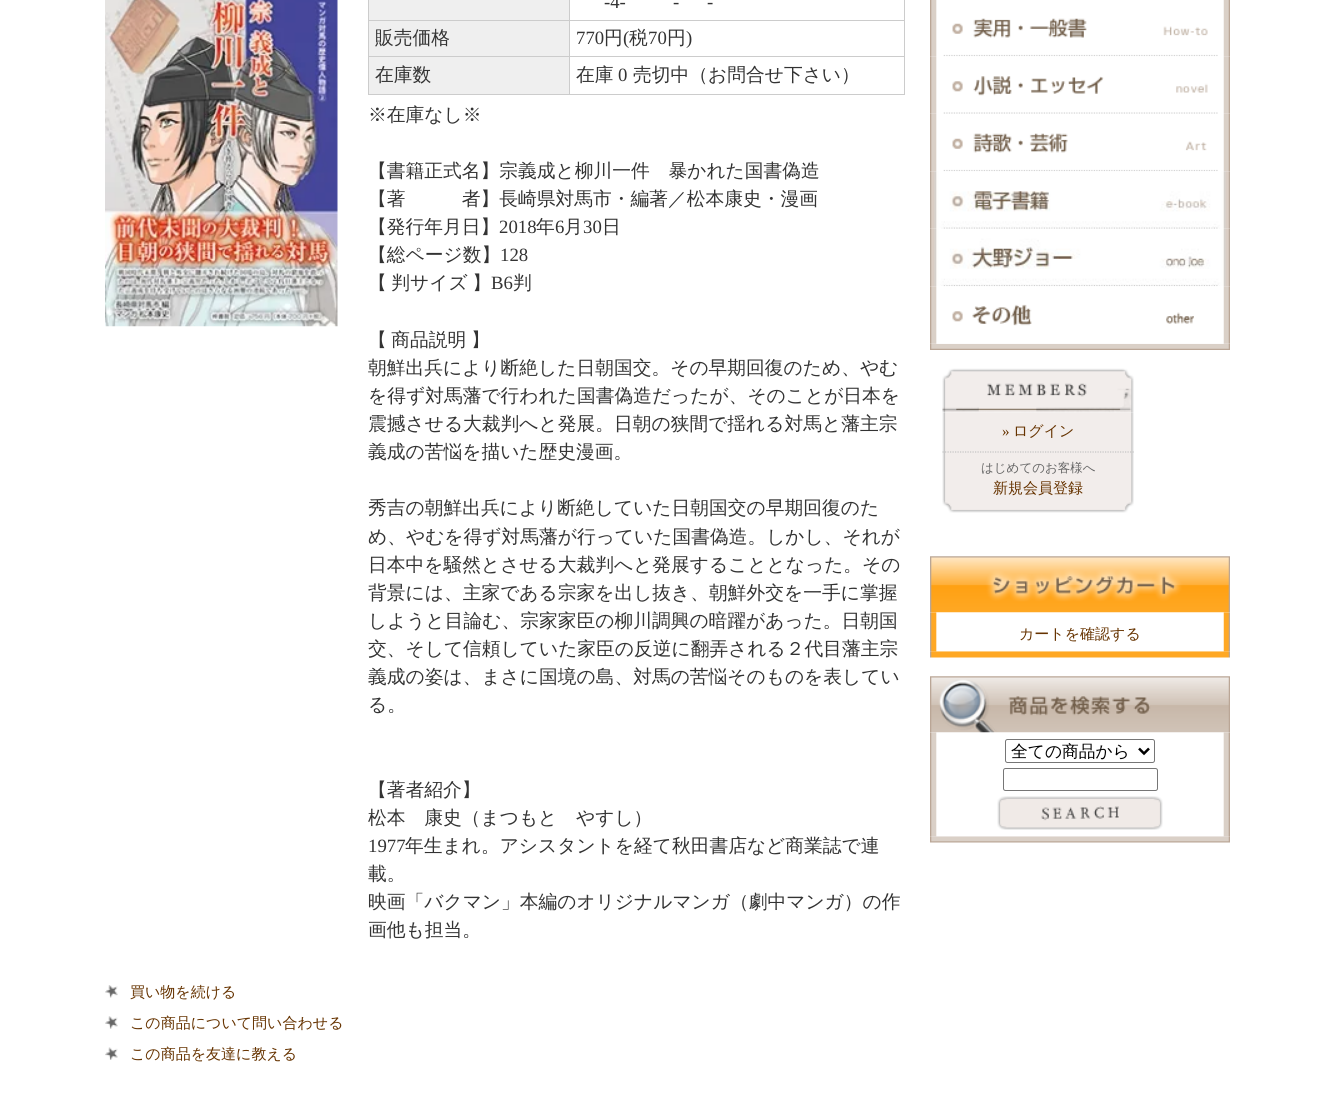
import math
import cairo

surface = cairo.ImageSurface(cairo.Format.RGB24, 1334, 1120)
ctx = cairo.Context(surface)
options = cairo.FontOptions()
options.set_hint_metrics(cairo.HintMetrics.OFF)
options.set_hint_style(cairo.HintStyle.NONE)
ctx.set_font_options(options)
ctx.set_miter_limit(4)


def ink(r, g, b):
    ctx.set_source_rgb(r / 255, g / 255, b / 255)


def write(x, y, s, family, size, color, bold=False, italic=False):
    ctx.select_font_face(family, cairo.FontSlant.ITALIC if italic else cairo.FontSlant.NORMAL, cairo.FontWeight.BOLD if bold else cairo.FontWeight.NORMAL)
    ctx.set_font_size(size)
    ink(*color)
    ctx.move_to(x, y)
    ctx.show_text(s)


def write_spaced(x, y, s, letter, word):
    ctx.move_to(x, y)
    for ch in s:
        ctx.show_text(ch)
        ctx.rel_move_to(letter + word * (ch == ' '), 0)


def block(x, y, w, h, *color):
    ink(*color)
    ctx.rectangle(x, y, w, h)
    ctx.fill()


def round_path(x, y, w, h, r):
    ctx.new_sub_path()
    for i, (u, v) in enumerate([(x + w - r, y + h - r), (x + r, y + h - r), (x + r, y + r), (x + w - r, y + r)]):
        ctx.arc(u, v, r, i * math.pi / 2, (i + 1) * math.pi / 2)
    ctx.close_path()


def paste(path, x, y, w, h):
    ctx.save()
    ctx.set_source_surface(cairo.ImageSurface.create_from_png(path), x, y)
    ctx.rectangle(x, y, w, h)
    ctx.fill()
    ctx.restore()


s1 = dict(family="Liberation Serif", size=18.75, color=(51, 51, 51))
s2 = dict(family="WenQuanYi Zen Hei Medium", size=18.75, color=(51, 51, 51))
s3 = dict(family="WenQuanYi Zen Hei Medium", size=15, color=(102, 51, 0))
s4 = dict(family="Liberation Serif", size=15, color=(102, 51, 0))
s5 = dict(family="WenQuanYi Zen Hei Medium", size=12.5, color=(102, 102, 102))
s6 = dict(family="WenQuanYi Zen Hei Medium", size=16.75, color=(0, 0, 0))

ink(255, 255, 255)
ctx.paint()
paste("pic1.png", 105, 0, 233, 327)
block(369, 0, 200, 20, 239, 239, 239)
block(569, 20, 336, 1, 204, 204, 204)
block(369, 21, 200, 73, 239, 239, 239)
block(569, 56, 336, 1, 204, 204, 204)
block(904, 56, 1, 39, 204, 204, 204)
block(569, 94, 336, 1, 204, 204, 204)
block(569, 56, 1, 39, 204, 204, 204)
block(368, 56, 202, 1, 204, 204, 204)
block(569, 20, 1, 38, 204, 204, 204)
block(368, 20, 202, 1, 204, 204, 204)
block(569, 0, 1, 21, 204, 204, 204)
write(604, 8, "-4-", **s1)
write(673, 8, "-", **s1)
write(707, 8, "-", **s1)
block(368, 94, 202, 1, 204, 204, 204)
block(368, 56, 1, 39, 204, 204, 204)
block(368, 0, 1, 58, 204, 204, 204)
write(375, 44, "販売価格", **s2)
block(904, 0, 1, 58, 204, 204, 204)
write(576, 44, "770", **s1)
write(604, 44, "円", **s2)
write(623, 44, "(", **s1)
write(629, 44, "税", **s2)
write(648, 44, "70", **s1)
write(667, 44, "円", **s2)
write(686, 44, ")", **s1)
write(375, 81, "在庫数", **s2)
write(576, 81, "在庫", **s2)
write(618, 81, "0", **s1)
write(633, 81, "売切中（お問合せ下さい）", **s2)
write(368, 121, "※在庫なし※", **s2)
write(368, 177, "【書籍正式名】宗義成と柳川一件　暴かれた国書偽造", **s2)
write(368, 205, "【著　　　者】長崎県対馬市・編著／松本康史・漫画", **s2)
write(368, 233, "【発行年月日】", **s2)
write(499, 233, "2018", **s1)
write(536, 233, "年", **s2)
write(555, 233, "6", **s1)
write(564, 233, "月", **s2)
write(583, 233, "30", **s1)
write(602, 233, "日", **s2)
write(368, 261, "【総ページ数】", **s2)
write(500, 261, "128", **s1)
ctx.select_font_face("WenQuanYi Zen Hei Medium")
write_spaced(368, 289, "【 判サイズ 】", 0, -1)
write(491, 289, "B6", **s1)
write(513, 289, "判", **s2)
write_spaced(368, 346, "【 商品説明 】", 0, -1)
write(368, 374, "朝鮮出兵により断絶した日朝国交。その早期回復のため、やむ", **s2)
write(368, 402, "を得ず対馬藩で行われた国書偽造だったが、そのことが日本を", **s2)
write(368, 430, "震撼させる大裁判へと発展。日朝の狭間で揺れる対馬と藩主宗", **s2)
write(368, 458, "義成の苦悩を描いた歴史漫画。", **s2)
write(368, 514, "秀吉の朝鮮出兵により断絶していた日朝国交の早期回復のた", **s2)
write(368, 543, "め、やむを得ず対馬藩が行っていた国書偽造。しかし、それが", **s2)
write(368, 571, "日本中を騒然とさせる大裁判へと発展することとなった。その", **s2)
write(368, 599, "背景には、主家である宗家を出し抜き、朝鮮外交を一手に掌握", **s2)
write(368, 627, "しようと目論む、宗家家臣の柳川調興の暗躍があった。日朝国", **s2)
write(368, 655, "交、そして信頼していた家臣の反逆に翻弄される２代目藩主宗", **s2)
write(368, 683, "義成の姿は、まさに国境の島、対馬の苦悩そのものを表してい", **s2)
write(368, 711, "る。", **s2)
write(368, 796, "【著者紹介】", **s2)
write(368, 824, "松本　康史（まつもと　やすし）", **s2)
write(368, 852, "1977", **s1)
write(405, 852, "年生まれ。アシスタントを経て秋田書店など商業誌で連", **s2)
write(368, 880, "載。", **s2)
write(368, 908, "映画「バクマン」本編のオリジナルマンガ（劇中マンガ）の作", **s2)
write(368, 936, "画他も担当。", **s2)
paste("pic2.png", 105, 985, 13, 13)
write(130, 997, "買い物を続ける", **s3)
paste("pic3.png", 105, 1016, 13, 13)
write(130, 1028, "この商品について問い合わせる", **s3)
paste("pic4.png", 105, 1047, 13, 13)
write(130, 1059, "この商品を友達に教える", **s3)
paste("pic5.png", 930, 0, 300, 57)
paste("pic6.png", 930, 56, 300, 58)
paste("pic7.png", 930, 113, 300, 59)
paste("pic8.png", 930, 171, 300, 58)
paste("pic9.png", 930, 228, 300, 59)
paste("pic11.png", 930, 343, 300, 7)
paste("pic10.png", 930, 286, 300, 58)
paste("pic12.png", 942, 500, 192, 13)
paste("pic13.png", 942, 368, 192, 45)
paste("pic14.png", 942, 412, 192, 88)
write(1002, 436, "»", **s4)
write(1013, 436, "ログイン", **s3)
ctx.new_path()
ctx.move_to(942.5, 452)
ctx.line_to(1134, 452)
ink(195, 195, 195)
ctx.set_line_width(1.2)
ctx.set_dash([1.25, 1.25])
ctx.stroke()
write(981, 472, "はじめてのお客様へ", **s5)
write(993, 493, "新規会員登録", **s3)
paste("pic15.png", 930, 651, 300, 7)
paste("pic16.png", 930, 556, 300, 57)
paste("pic17.png", 930, 612, 300, 40)
write(1019, 639, "カートを確認する", **s3)
paste("pic18.png", 930, 836, 300, 7)
paste("pic19.png", 930, 676, 300, 57)
paste("pic20.png", 930, 732, 300, 105)
round_path(1005.5, 739.5, 149, 23, 2)
ink(118, 118, 118)
ctx.set_line_width(1)
ctx.set_dash([])
ctx.stroke()
ctx.new_path()
ctx.move_to(1139, 748.5)
ctx.line_to(1144, 753.5)
ctx.line_to(1149, 748.5)
ink(0, 0, 0)
ctx.set_line_width(2.5)
ctx.stroke()
write(1011, 757, "全ての商品から", **s6)
round_path(1003.5, 768.5, 154, 22, 2)
ink(118, 118, 118)
ctx.set_line_width(1)
ctx.stroke()
paste("pic21.png", 997, 796, 166, 34)
surface.write_to_png("screenshot.png")
